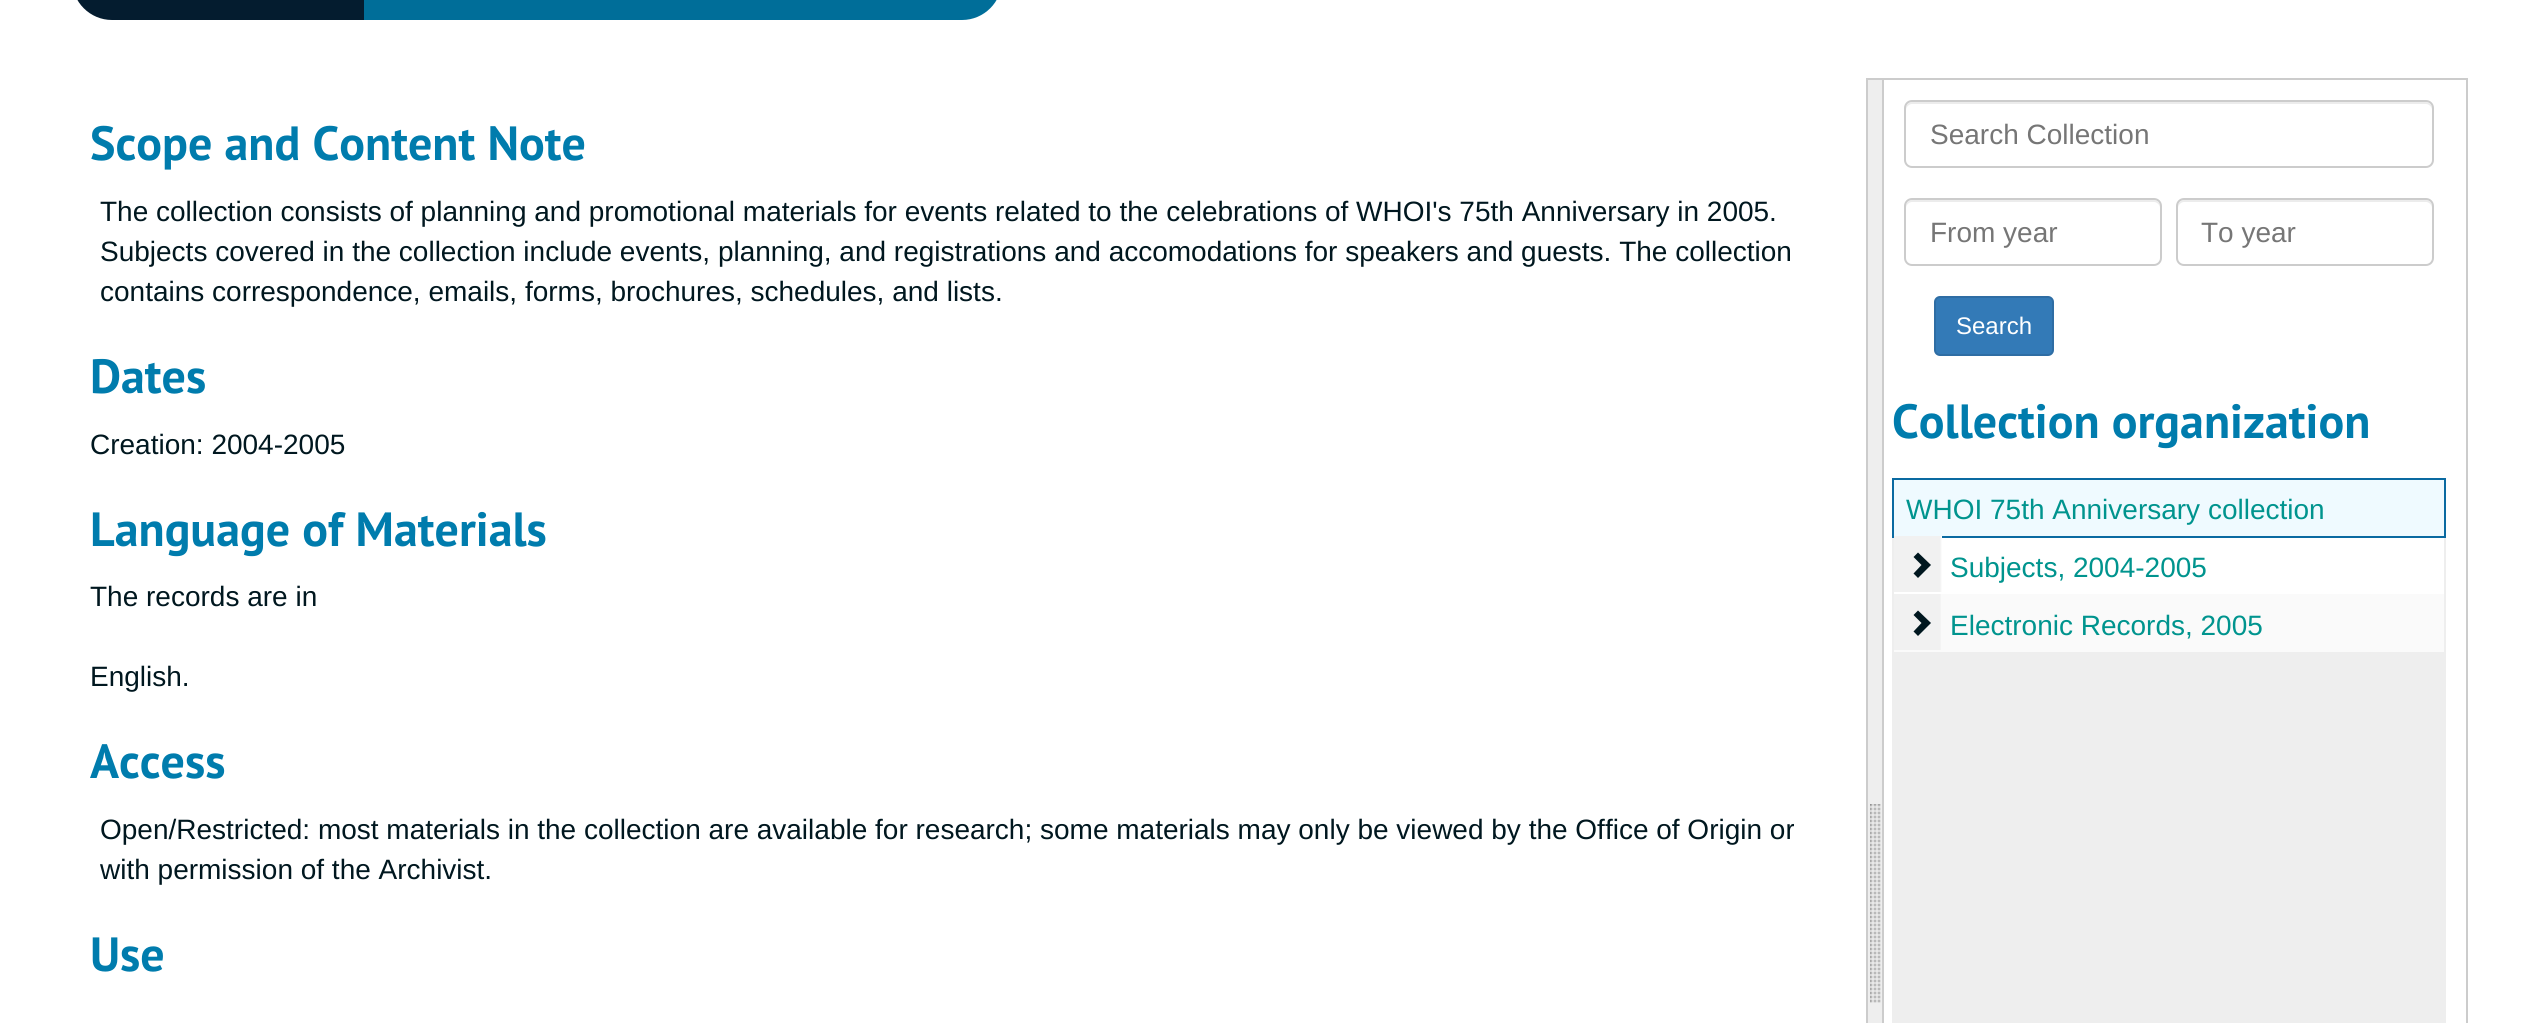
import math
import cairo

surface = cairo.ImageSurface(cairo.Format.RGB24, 2528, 1023)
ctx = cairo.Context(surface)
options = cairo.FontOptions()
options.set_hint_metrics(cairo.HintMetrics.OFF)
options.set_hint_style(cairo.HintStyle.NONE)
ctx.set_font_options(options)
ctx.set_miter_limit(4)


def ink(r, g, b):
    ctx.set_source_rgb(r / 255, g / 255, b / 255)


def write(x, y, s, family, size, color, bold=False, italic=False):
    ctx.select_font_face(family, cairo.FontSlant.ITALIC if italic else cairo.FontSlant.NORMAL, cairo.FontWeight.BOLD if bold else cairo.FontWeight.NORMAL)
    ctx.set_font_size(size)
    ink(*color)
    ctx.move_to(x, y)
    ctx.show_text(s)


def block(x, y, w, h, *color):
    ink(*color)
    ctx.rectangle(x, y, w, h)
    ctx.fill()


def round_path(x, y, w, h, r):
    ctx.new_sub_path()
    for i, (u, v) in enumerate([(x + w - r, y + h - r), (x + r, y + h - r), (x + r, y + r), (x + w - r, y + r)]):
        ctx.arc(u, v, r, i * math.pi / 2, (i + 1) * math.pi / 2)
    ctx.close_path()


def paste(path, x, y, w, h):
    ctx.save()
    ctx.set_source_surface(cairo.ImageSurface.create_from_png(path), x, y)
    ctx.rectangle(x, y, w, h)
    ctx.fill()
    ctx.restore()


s1 = dict(family="PT Sans", size=48, color=(0, 124, 173), bold=True)
s2 = dict(family="Liberation Sans", size=28, color=(0, 23, 31))
s3 = dict(family="Liberation Sans", size=28, color=(118, 118, 118))
s4 = dict(family="Liberation Sans", size=24, color=(255, 255, 255))
s5 = dict(family="Liberation Sans", size=28, color=(0, 148, 142))

ink(255, 255, 255)
ctx.paint()
ink(4, 28, 47)
ctx.new_path()
ctx.move_to(112, -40)
ctx.line_to(380, -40)
ctx.line_to(380, 20)
ctx.line_to(112, 20)
ctx.curve_to(90, 20, 72, 2, 72, -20)
ctx.line_to(72, 0)
ctx.curve_to(72, -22, 90, -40, 112, -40)
ctx.close_path()
ctx.fill()
block(364, 0, 332, 20, 0, 110, 153)
ctx.new_path()
ctx.move_to(696, -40)
ctx.line_to(962, -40)
ctx.curve_to(984, -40, 1002, -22, 1002, 0)
ctx.line_to(1002, -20)
ctx.curve_to(1002, 2, 984, 20, 962, 20)
ctx.line_to(696, 20)
ctx.close_path()
ctx.fill()
write(90, 160, "Scope and Content Note", **s1)
write(100, 221, "The collection consists of planning and promotional materials for events related to the celebrations of WHOI's 75th Anniversary in 2005.", **s2)
write(100, 261, "Subjects covered in the collection include events, planning, and registrations and accomodations for speakers and guests. The collection", **s2)
write(100, 301, "contains correspondence, emails, forms, brochures, schedules, and lists.", **s2)
write(90, 393, "Dates", **s1)
write(90, 454, "Creation: 2004-2005", **s2)
write(90, 546, "Language of Materials", **s1)
write(90, 606, "The records are in", **s2)
write(90, 686, "English.", **s2)
write(90, 778, "Access", **s1)
write(100, 839, "Open/Restricted: most materials in the collection are available for research; some materials may only be viewed by the Office of Origin or", **s2)
write(100, 879, "with permission of the Archivist.", **s2)
write(90, 971, "Use", **s1)
ctx.rectangle(1867, 79, 600, 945)
ink(204, 204, 204)
ctx.stroke()
block(1868, 80, 14, 943, 238, 238, 238)
paste("pic1.png", 1870, 804, 11, 199)
block(1882, 80, 2, 943, 204, 204, 204)
ink(236, 236, 236)
ctx.new_path()
ctx.move_to(1912, 104)
ctx.line_to(2426, 104)
ctx.curve_to(2429, 104, 2432, 107, 2432, 110)
ctx.line_to(2432, 108)
ctx.curve_to(2432, 105, 2429, 102, 2426, 102)
ctx.line_to(1912, 102)
ctx.curve_to(1909, 102, 1906, 105, 1906, 108)
ctx.line_to(1906, 110)
ctx.curve_to(1906, 107, 1909, 104, 1912, 104)
ctx.close_path()
ctx.fill()
round_path(1905, 101, 528, 66, 7)
ink(204, 204, 204)
ctx.stroke()
write(1930, 144, "Search Collection", **s3)
ink(236, 236, 236)
ctx.new_path()
ctx.move_to(1912, 202)
ctx.line_to(2154, 202)
ctx.curve_to(2157, 202, 2160, 205, 2160, 208)
ctx.line_to(2160, 206)
ctx.curve_to(2160, 203, 2157, 200, 2154, 200)
ctx.line_to(1912, 200)
ctx.curve_to(1909, 200, 1906, 203, 1906, 206)
ctx.line_to(1906, 208)
ctx.curve_to(1906, 205, 1909, 202, 1912, 202)
ctx.close_path()
ctx.fill()
round_path(1905, 199, 256, 66, 7)
ink(204, 204, 204)
ctx.stroke()
write(1930, 242, "From year", **s3)
ink(236, 236, 236)
ctx.new_path()
ctx.move_to(2184, 202)
ctx.line_to(2426, 202)
ctx.curve_to(2429, 202, 2432, 205, 2432, 208)
ctx.line_to(2432, 206)
ctx.curve_to(2432, 203, 2429, 200, 2426, 200)
ctx.line_to(2184, 200)
ctx.curve_to(2181, 200, 2178, 203, 2178, 206)
ctx.line_to(2178, 208)
ctx.curve_to(2178, 205, 2181, 202, 2184, 202)
ctx.close_path()
ctx.fill()
round_path(2177, 199, 256, 66, 7)
ink(204, 204, 204)
ctx.stroke()
write(2201, 242, "To year", **s3)
ink(51, 122, 183)
round_path(1935, 297, 118, 58, 5)
ctx.fill_preserve()
ink(46, 109, 164)
ctx.stroke()
write(1956, 334, "Search", **s4)
write(1892, 438, "Collection organization", **s1)
block(1892, 538, 554, 485, 238, 238, 238)
ctx.rectangle(1893, 479, 552, 58)
ink(10, 106, 161)
ctx.stroke()
block(1894, 480, 550, 56, 239, 250, 255)
write(1906, 519, "WHOI 75th Anniversary collection", **s5)
block(1894, 538, 550, 56, 255, 255, 255)
gradient = cairo.LinearGradient(1894, 564, 1942, 564)
gradient.add_color_stop_rgba(0, 0.945, 0.945, 0.945, 1)
gradient.add_color_stop_rgba(0.96, 0.945, 0.945, 0.945, 1)
gradient.add_color_stop_rgba(1, 1, 1, 1, 1)
ctx.set_source(gradient)
ctx.rectangle(1894, 536, 48, 56)
ctx.fill()
ink(0, 23, 31)
ctx.new_path()
ctx.move_to(1931, 565)
ctx.line_to(1918, 578)
ctx.line_to(1913.5, 573.5)
ctx.line_to(1921.5, 565)
ctx.line_to(1913.5, 557)
ctx.line_to(1918, 552.5)
ctx.close_path()
ctx.fill()
write(1950, 577, "Subjects, 2004-2005", **s5)
block(1894, 594, 550, 58, 250, 250, 250)
gradient = cairo.LinearGradient(1894, 622, 1942, 622)
gradient.add_color_stop_rgba(0, 0.945, 0.945, 0.945, 1)
gradient.add_color_stop_rgba(0.96, 0.945, 0.945, 0.945, 1)
gradient.add_color_stop_rgba(1, 1, 1, 1, 1)
ctx.set_source(gradient)
ctx.rectangle(1894, 594, 47, 56)
ctx.fill()
ink(0, 23, 31)
ctx.new_path()
ctx.move_to(1931, 623)
ctx.line_to(1918, 636)
ctx.line_to(1913.5, 631.5)
ctx.line_to(1921.5, 623)
ctx.line_to(1913.5, 615)
ctx.line_to(1918, 610.5)
ctx.close_path()
ctx.fill()
write(1950, 635, "Electronic Records, 2005", **s5)
surface.write_to_png("screenshot.png")
